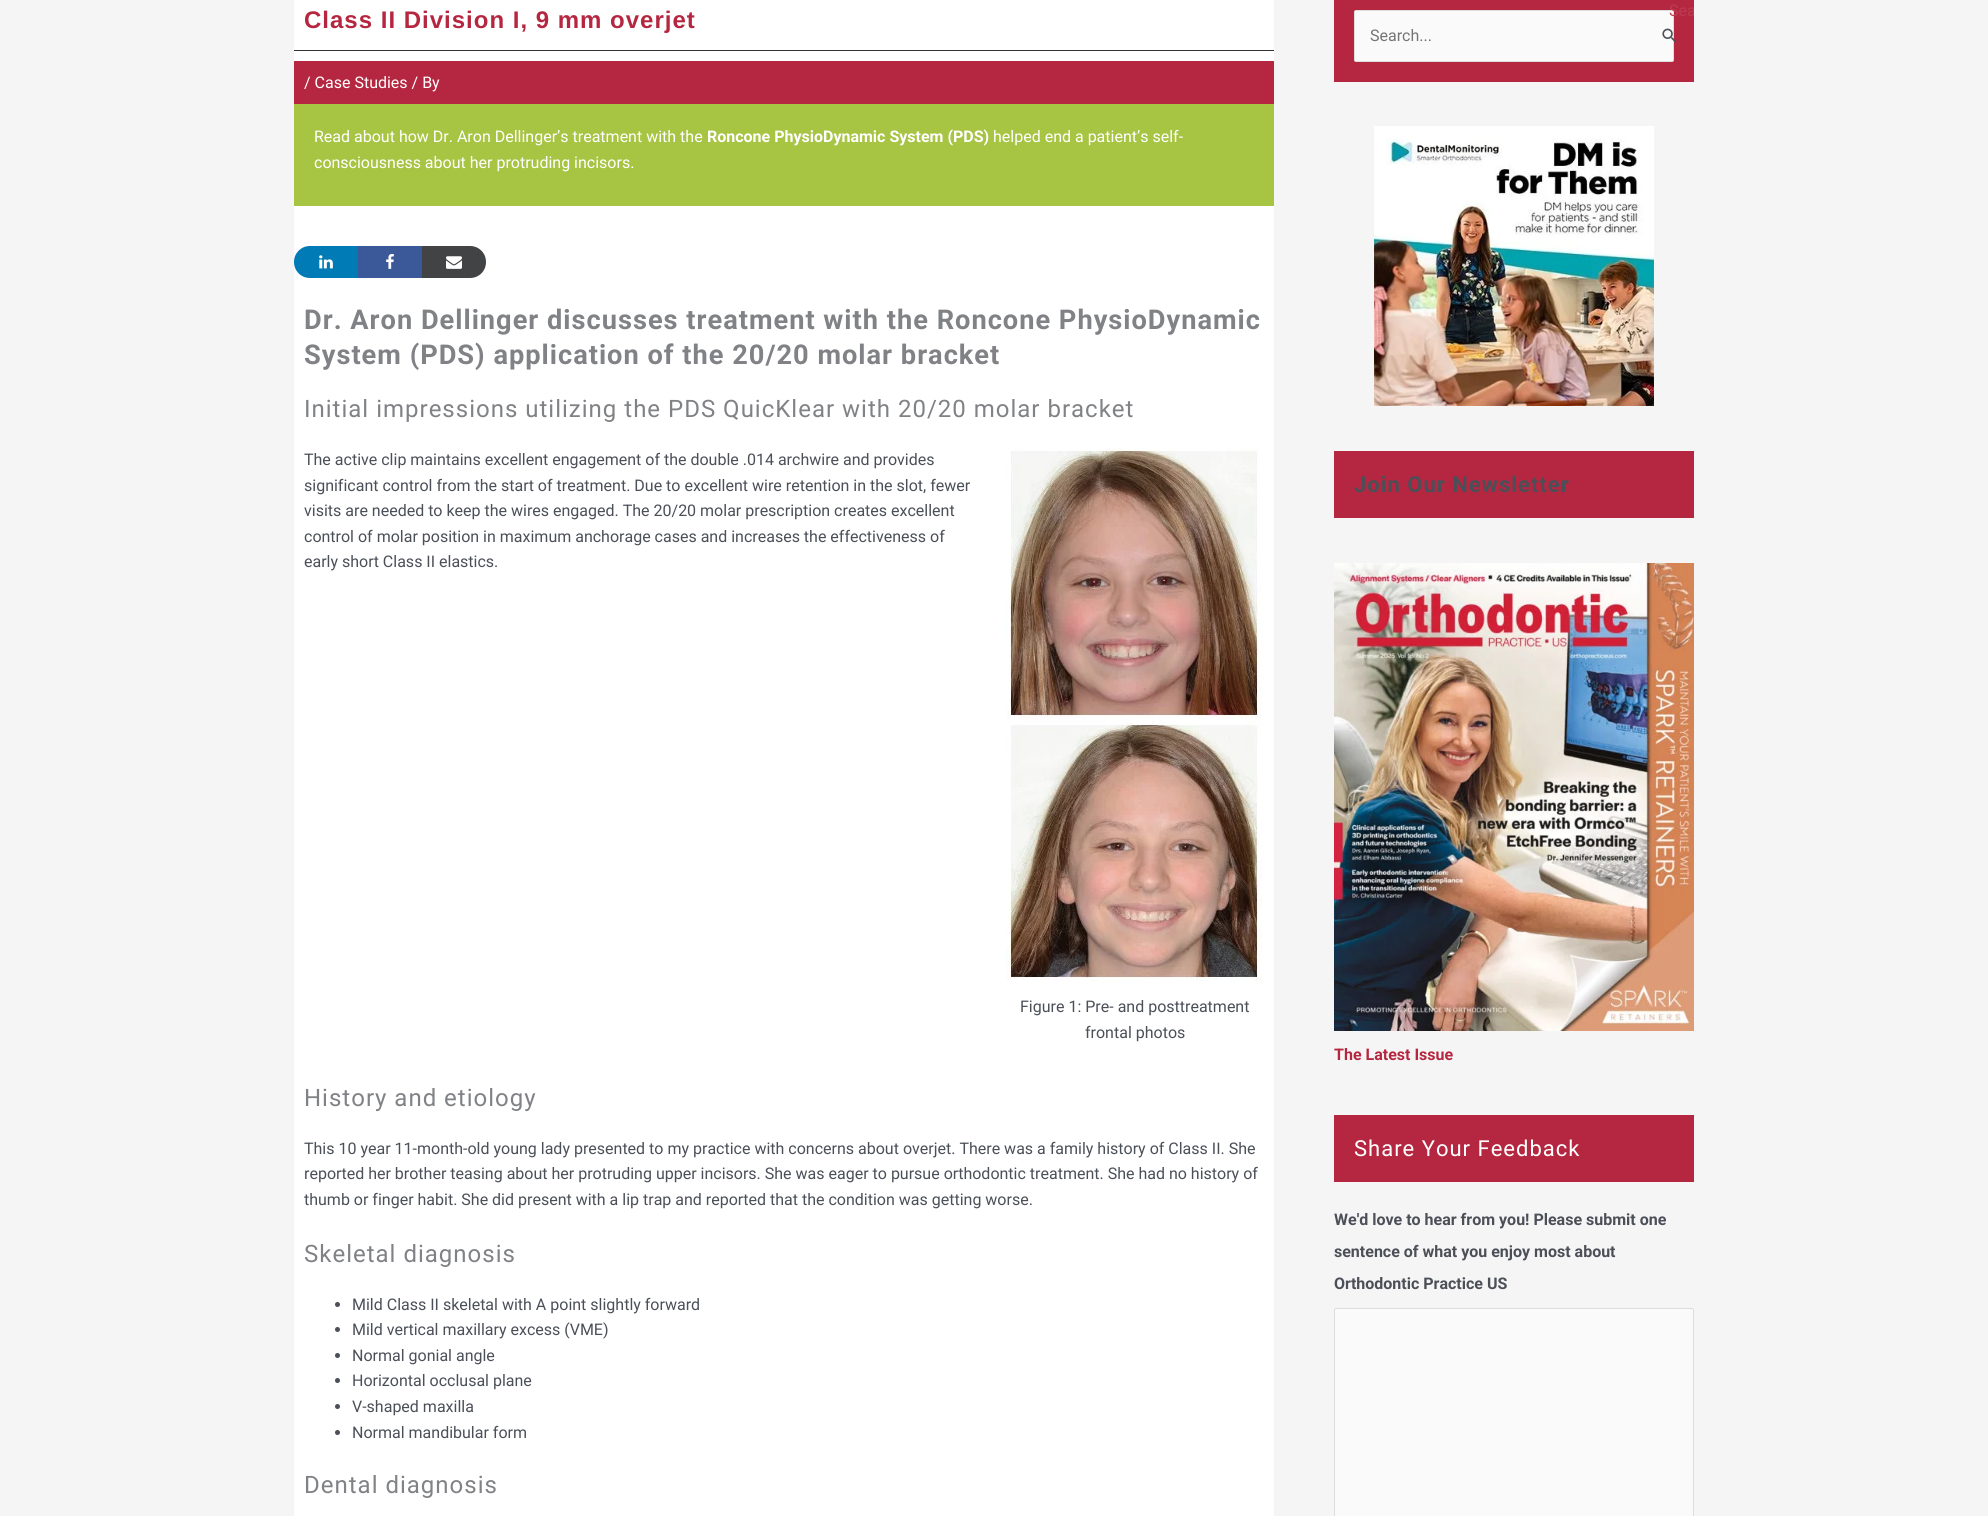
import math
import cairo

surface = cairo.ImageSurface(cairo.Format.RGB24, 1988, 1516)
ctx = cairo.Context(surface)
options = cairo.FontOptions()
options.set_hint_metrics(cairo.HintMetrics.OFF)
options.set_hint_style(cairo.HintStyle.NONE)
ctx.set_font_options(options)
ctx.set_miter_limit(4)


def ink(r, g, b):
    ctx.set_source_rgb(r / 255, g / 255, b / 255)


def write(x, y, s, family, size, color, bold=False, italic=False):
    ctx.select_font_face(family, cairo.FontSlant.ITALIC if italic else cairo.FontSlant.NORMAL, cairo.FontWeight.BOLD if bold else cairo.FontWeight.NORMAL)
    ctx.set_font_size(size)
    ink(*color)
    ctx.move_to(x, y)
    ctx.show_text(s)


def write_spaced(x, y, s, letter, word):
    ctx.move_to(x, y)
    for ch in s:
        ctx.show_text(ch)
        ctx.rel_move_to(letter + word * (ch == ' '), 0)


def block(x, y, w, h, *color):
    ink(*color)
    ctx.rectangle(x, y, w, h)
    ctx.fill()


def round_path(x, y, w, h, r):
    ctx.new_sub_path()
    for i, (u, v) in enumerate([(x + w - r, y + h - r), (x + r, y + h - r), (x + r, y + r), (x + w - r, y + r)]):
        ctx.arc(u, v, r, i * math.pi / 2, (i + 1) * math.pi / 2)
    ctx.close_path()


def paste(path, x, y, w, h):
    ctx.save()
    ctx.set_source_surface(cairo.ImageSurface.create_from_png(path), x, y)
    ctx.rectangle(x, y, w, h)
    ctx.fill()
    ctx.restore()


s1 = dict(family="Roboto", size=16, color=(255, 255, 255))
s2 = dict(family="Roboto", size=16, color=(255, 255, 255), bold=True)
s3 = dict(family="Roboto", size=16, color=(75, 79, 88))
s4 = dict(family="Roboto", size=16, color=(187, 60, 82))
s5 = dict(family="Roboto", size=16, color=(117, 117, 117))
s6 = dict(family="Roboto", size=16, color=(181, 39, 64), bold=True)
s7 = dict(family="Roboto", size=16, color=(75, 79, 88), bold=True)

ink(245, 245, 245)
ctx.paint()
block(294, 0, 980, 1516, 255, 255, 255)
block(294, 50, 980, 1, 51, 51, 51)
ctx.select_font_face("Liberation Sans", cairo.FontSlant.NORMAL, cairo.FontWeight.BOLD)
ctx.set_font_size(24)
ink(181, 39, 64)
write_spaced(304, 28, "Class II Division I, 9 mm overjet", 1, 0)
block(294, 61, 980, 43, 181, 39, 64)
write(304, 88, "/ Case Studies / By", **s1)
block(294, 104, 980, 102, 167, 196, 67)
write(314, 142, "Read about how Dr. Aron Dellinger’s treatment with the", **s1)
write(707, 142, "Roncone PhysioDynamic System (PDS)", **s2)
write(993, 142, "helped end a patient’s self-", **s1)
write(314, 168, "consciousness about her protruding incisors.", **s1)
ink(0, 123, 182)
ctx.new_path()
ctx.move_to(310, 246)
ctx.line_to(358, 246)
ctx.line_to(358, 278)
ctx.line_to(310, 278)
ctx.curve_to(301, 278, 294, 271, 294, 262)
ctx.curve_to(294, 253, 301, 246, 310, 246)
ctx.close_path()
ctx.fill()
paste("pic1.png", 319, 255, 14, 14)
block(358, 246, 64, 32, 59, 89, 152)
paste("pic2.png", 386, 254, 8, 15)
ink(66, 67, 69)
ctx.new_path()
ctx.move_to(422, 246)
ctx.line_to(470, 246)
ctx.curve_to(479, 246, 486, 253, 486, 262)
ctx.curve_to(486, 271, 479, 278, 470, 278)
ctx.line_to(422, 278)
ctx.close_path()
ctx.fill()
paste("pic3.png", 446, 256, 16, 13)
ctx.select_font_face("Roboto", cairo.FontSlant.NORMAL, cairo.FontWeight.BOLD)
ctx.set_font_size(27.2)
ink(128, 130, 133)
write_spaced(304, 329, "Dr. Aron Dellinger discusses treatment with the Roncone PhysioDynamic", 1, 0)
write_spaced(304, 364, "System (PDS) application of the 20/20 molar bracket", 1, 0)
ctx.select_font_face("Roboto")
ctx.set_font_size(24)
write_spaced(304, 417, "Initial impressions utilizing the PDS QuicKlear with 20/20 molar bracket", 1, 0)
write(304, 465, "The active clip maintains excellent engagement of the double .014 archwire and provides", **s3)
write(304, 491, "significant control from the start of treatment. Due to excellent wire retention in the slot, fewer", **s3)
write(304, 516, "visits are needed to keep the wires engaged. The 20/20 molar prescription creates excellent", **s3)
write(304, 542, "control of molar position in maximum anchorage cases and increases the effectiveness of", **s3)
write(304, 567, "early short Class II elastics.", **s3)
paste("pic4.png", 1006, 448, 256, 533)
write(1020, 1012, "Figure 1: Pre- and posttreatment", **s3)
write(1085, 1038, "frontal photos", **s3)
ctx.set_font_size(24)
ink(128, 130, 133)
write_spaced(304, 1106, "History and etiology", 1, 0)
write(304, 1154, "This 10 year 11-month-old young lady presented to my practice with concerns about overjet. There was a family history of Class II. She", **s3)
write(304, 1179, "reported her brother teasing about her protruding upper incisors. She was eager to pursue orthodontic treatment. She had no history of", **s3)
write(304, 1205, "thumb or finger habit. She did present with a lip trap and reported that the condition was getting worse.", **s3)
ctx.set_font_size(24)
ink(128, 130, 133)
write_spaced(304, 1262, "Skeletal diagnosis", 1, 0)
ink(75, 79, 88)
ctx.new_path()
ctx.arc(337.5, 1304.5, 2.5, 0, 2 * math.pi)
ctx.fill()
write(352, 1310, "Mild Class II skeletal with A point slightly forward", **s3)
ctx.new_path()
ctx.arc(337.5, 1329.5, 2.5, 0, 2 * math.pi)
ctx.fill()
write(352, 1335, "Mild vertical maxillary excess (VME)", **s3)
ctx.new_path()
ctx.arc(337.5, 1355.5, 2.5, 0, 2 * math.pi)
ctx.fill()
write(352, 1361, "Normal gonial angle", **s3)
ctx.new_path()
ctx.arc(337.5, 1380.5, 2.5, 0, 2 * math.pi)
ctx.fill()
write(352, 1386, "Horizontal occlusal plane", **s3)
ctx.new_path()
ctx.arc(337.5, 1406.5, 2.5, 0, 2 * math.pi)
ctx.fill()
write(352, 1412, "V-shaped maxilla", **s3)
ctx.new_path()
ctx.arc(337.5, 1432.5, 2.5, 0, 2 * math.pi)
ctx.fill()
write(352, 1438, "Normal mandibular form", **s3)
ctx.set_font_size(24)
ink(128, 130, 133)
write_spaced(304, 1493, "Dental diagnosis", 1, 0)
block(1334, 0, 360, 82, 181, 39, 64)
ink(250, 250, 250)
round_path(1354.5, 10.5, 319, 51, 1.5)
ctx.fill_preserve()
ink(221, 221, 221)
ctx.set_line_width(1)
ctx.stroke()
ctx.save()
round_path(1649, -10, 45, 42, 2)
ctx.clip()
write(1669, 16, "Sea", **s4)
ctx.restore()
write(1370, 41, "Search...", **s5)
paste("pic5.png", 1662, 28, 15, 15)
paste("pic6.png", 1374, 126, 280, 280)
block(1334, 451, 360, 67, 181, 39, 64)
ctx.select_font_face("Roboto", cairo.FontSlant.NORMAL, cairo.FontWeight.BOLD)
ctx.set_font_size(22)
ink(75, 79, 88)
write_spaced(1354, 492, "Join Our Newsletter", 1, 0)
paste("pic7.png", 1334, 563, 360, 468)
write(1334, 1060, "The Latest Issue", **s6)
block(1334, 1115, 360, 67, 181, 39, 64)
ctx.select_font_face("Roboto")
ctx.set_font_size(22)
ink(255, 255, 255)
write_spaced(1354, 1156, "Share Your Feedback", 1, 0)
write(1334, 1225, "We'd love to hear from you! Please submit one", **s7)
write(1334, 1257, "sentence of what you enjoy most about", **s7)
write(1334, 1289, "Orthodontic Practice US", **s7)
ink(250, 250, 250)
round_path(1334.5, 1308.5, 359, 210, 1.5)
ctx.fill_preserve()
ink(221, 221, 221)
ctx.stroke()
surface.write_to_png("screenshot.png")
